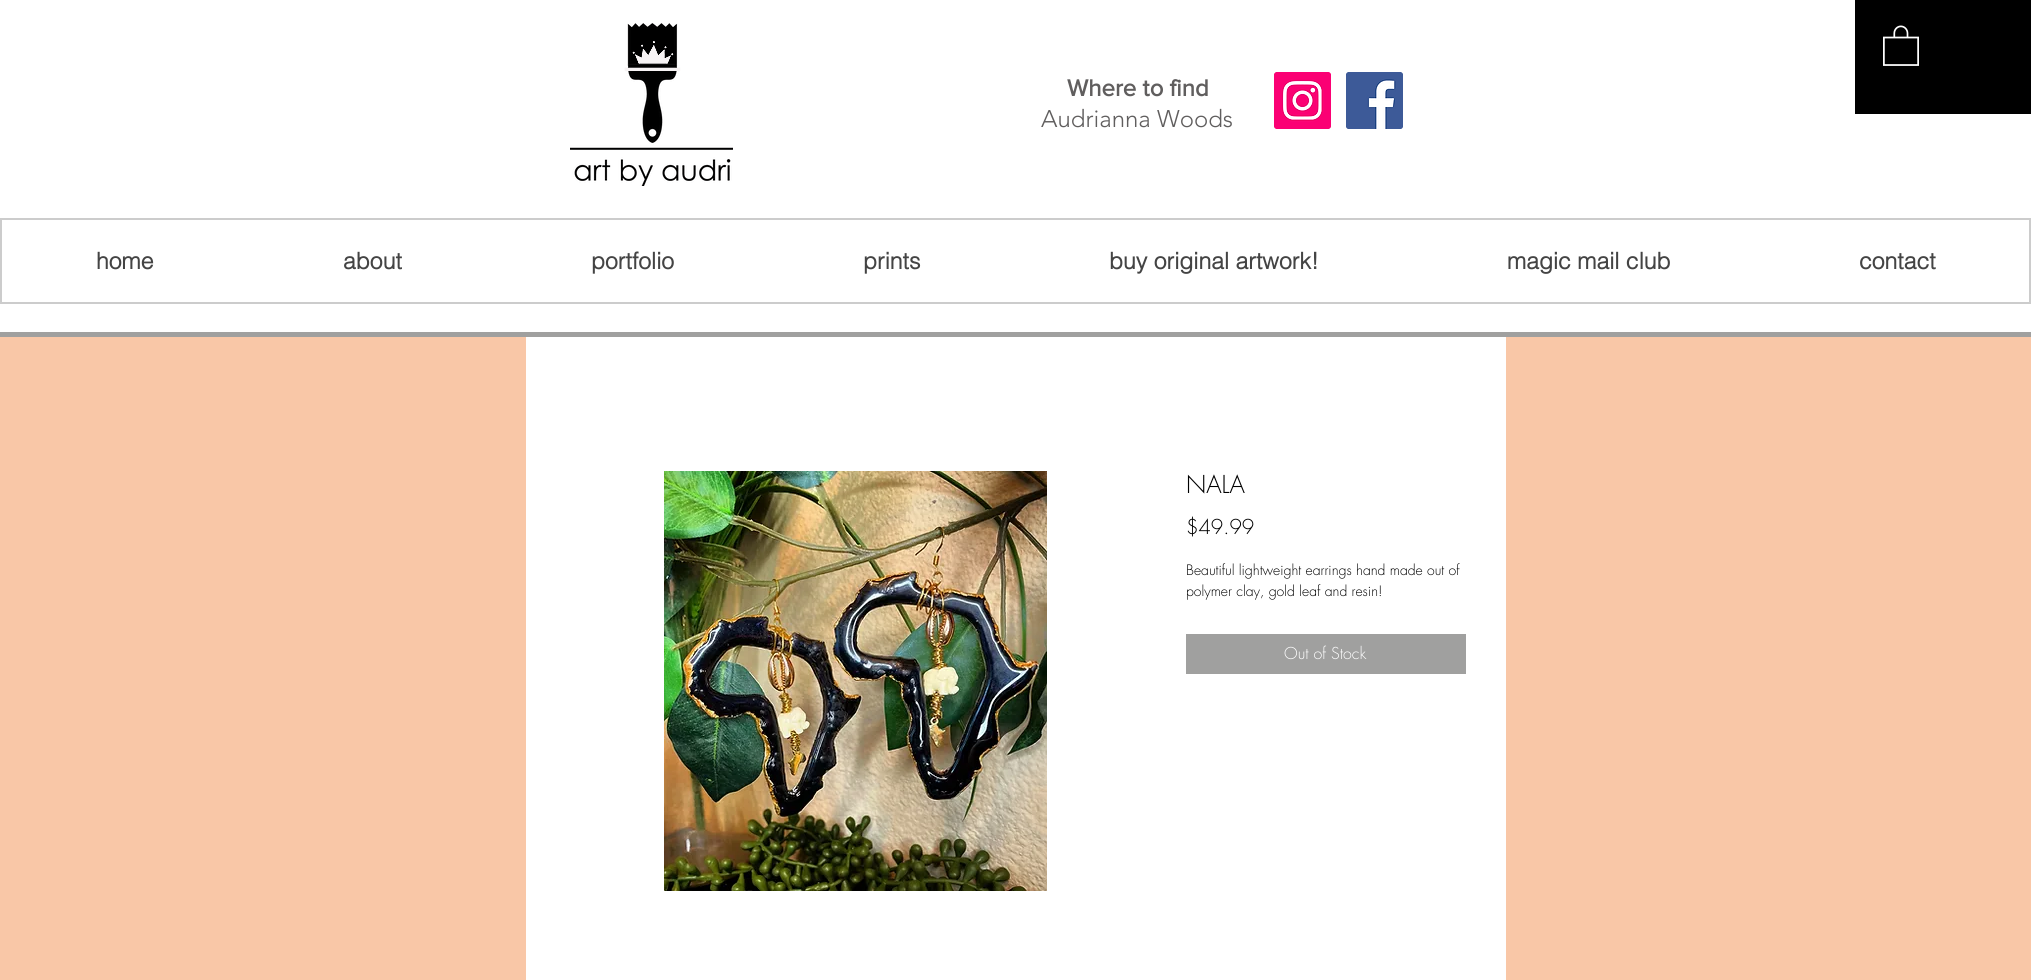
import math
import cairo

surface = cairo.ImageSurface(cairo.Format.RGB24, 2031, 980)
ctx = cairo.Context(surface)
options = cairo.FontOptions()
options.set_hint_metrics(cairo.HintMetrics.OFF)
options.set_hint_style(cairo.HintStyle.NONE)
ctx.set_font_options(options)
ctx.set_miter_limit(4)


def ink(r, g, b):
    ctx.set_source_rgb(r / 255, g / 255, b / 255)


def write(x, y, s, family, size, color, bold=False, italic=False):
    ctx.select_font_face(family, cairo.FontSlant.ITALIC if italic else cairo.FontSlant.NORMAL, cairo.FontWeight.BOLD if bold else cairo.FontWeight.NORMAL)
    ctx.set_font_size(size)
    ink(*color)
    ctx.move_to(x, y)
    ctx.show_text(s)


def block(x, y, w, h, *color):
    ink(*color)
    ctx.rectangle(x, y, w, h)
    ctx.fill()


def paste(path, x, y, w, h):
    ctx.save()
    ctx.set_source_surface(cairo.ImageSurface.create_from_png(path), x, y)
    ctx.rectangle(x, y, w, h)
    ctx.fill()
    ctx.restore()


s1 = dict(family="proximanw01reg", size=24, color=(96, 94, 94), bold=True)
s2 = dict(family="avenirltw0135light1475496 Light", size=24, color=(96, 94, 94))
s3 = dict(family="helvetica", size=23, color=(68, 68, 68), bold=True)
s4 = dict(family="futura Light", size=24, color=(0, 0, 0))
s5 = dict(family="futura Light", size=20, color=(0, 0, 0))
s6 = dict(family="futura Light", size=14, color=(0, 0, 0))
s7 = dict(family="futura Light", size=16, color=(255, 255, 255))

ink(249, 199, 167)
ctx.paint()
block(0, 0, 2031, 332, 255, 255, 255)
block(1855, 0, 176, 114, 0, 0, 0)
paste("pic1.png", 1883, 25, 36, 41)
block(0, 332, 2031, 5, 160, 160, 159)
paste("pic2.png", 570, 23, 163, 163)
write(1067, 96, "Where to find", **s1)
write(1041, 127, "Audrianna Woods", **s2)
paste("pic3.png", 1274, 72, 57, 57)
paste("pic4.png", 1346, 72, 57, 57)
ctx.rectangle(1, 219, 2029, 84)
ink(204, 204, 204)
ctx.stroke()
write(96, 269, "home", **s3)
write(343, 269, "about", **s3)
write(591, 269, "portfolio", **s3)
write(863, 269, "prints", **s3)
write(1109, 269, "buy original artwork!", **s3)
write(1507, 269, "magic mail club", **s3)
write(1859, 269, "contact", **s3)
block(526, 337, 980, 643, 255, 255, 255)
paste("pic5.png", 664, 471, 383, 420)
write(1186, 493, "NALA", **s4)
write(1186, 534, "$49.99", **s5)
write(1186, 575, "Beautiful lightweight earrings hand made out of", **s6)
write(1186, 596, "polymer clay, gold leaf and resin!", **s6)
block(1186, 634, 280, 40, 160, 160, 159)
write(1284, 659, "Out of Stock", **s7)
surface.write_to_png("screenshot.png")
